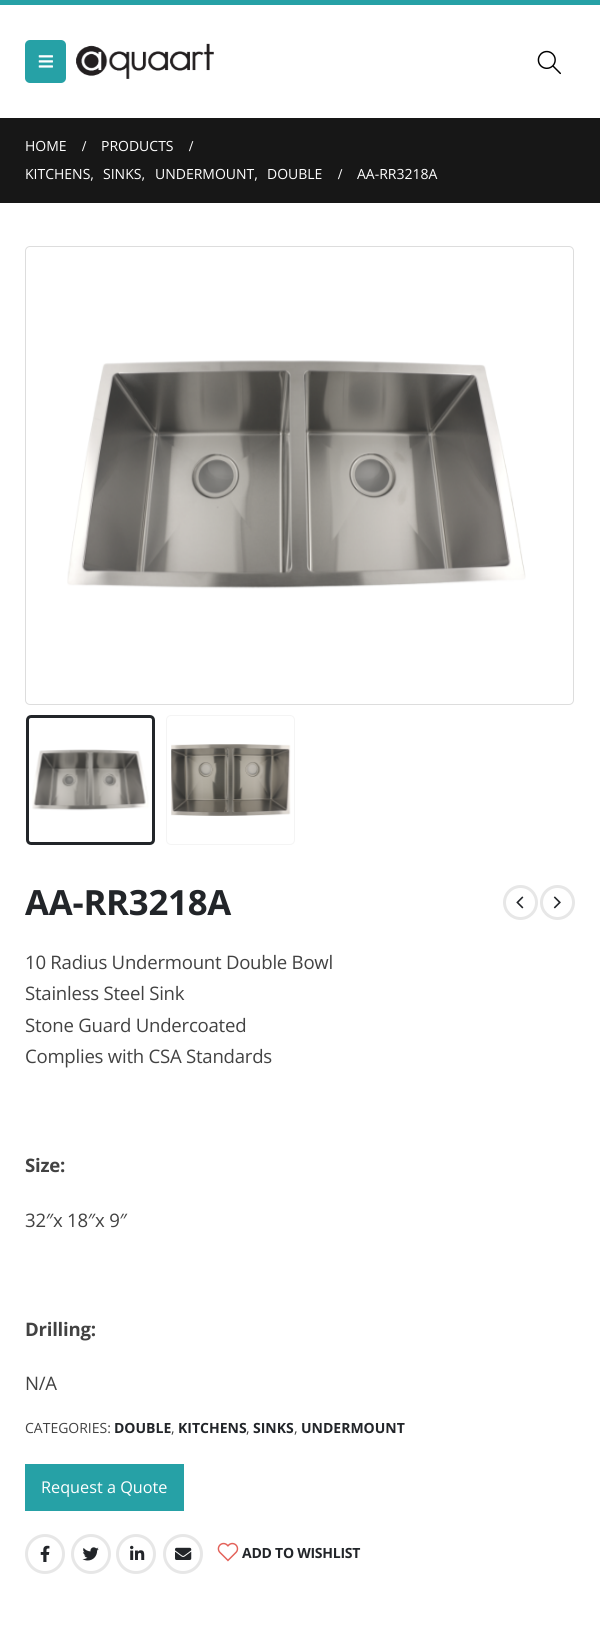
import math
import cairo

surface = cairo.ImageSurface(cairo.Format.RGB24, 600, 1641)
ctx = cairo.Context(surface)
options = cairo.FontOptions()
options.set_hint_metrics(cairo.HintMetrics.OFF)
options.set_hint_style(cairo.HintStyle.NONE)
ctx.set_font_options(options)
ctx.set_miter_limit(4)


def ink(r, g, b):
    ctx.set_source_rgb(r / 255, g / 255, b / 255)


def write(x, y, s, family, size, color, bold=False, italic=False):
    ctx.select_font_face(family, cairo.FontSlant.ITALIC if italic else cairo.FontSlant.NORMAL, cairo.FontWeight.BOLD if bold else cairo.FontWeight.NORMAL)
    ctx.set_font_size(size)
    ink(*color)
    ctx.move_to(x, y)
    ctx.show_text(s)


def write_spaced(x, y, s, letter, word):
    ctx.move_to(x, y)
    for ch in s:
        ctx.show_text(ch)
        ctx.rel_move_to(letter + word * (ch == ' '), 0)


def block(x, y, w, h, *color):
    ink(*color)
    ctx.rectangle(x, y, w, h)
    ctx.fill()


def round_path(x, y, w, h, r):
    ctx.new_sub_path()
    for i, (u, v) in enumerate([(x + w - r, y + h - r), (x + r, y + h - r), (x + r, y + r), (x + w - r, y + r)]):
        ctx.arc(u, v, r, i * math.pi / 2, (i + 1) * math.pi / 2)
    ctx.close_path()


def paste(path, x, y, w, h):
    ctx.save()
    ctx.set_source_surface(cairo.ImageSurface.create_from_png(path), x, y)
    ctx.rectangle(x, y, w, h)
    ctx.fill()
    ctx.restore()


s1 = dict(family="Open Sans", size=14, color=(255, 255, 255))
s2 = dict(family="Liberation Serif", size=15, color=(255, 255, 255), bold=True)
s3 = dict(family="Open Sans", size=14, color=(66, 66, 66))
s4 = dict(family="Open Sans", size=14, color=(34, 37, 41), bold=True)
s5 = dict(family="Open Sans", size=16.25, color=(255, 255, 255))

ink(255, 255, 255)
ctx.paint()
block(0, 0, 600, 5, 38, 161, 166)
round_path(25, 40, 41, 43, 5)
ctx.fill()
paste("pic1.png", 38, 55, 15, 13)
paste("pic2.png", 76, 43, 138, 36)
paste("pic3.png", 537, 50, 24, 25)
block(0, 118, 600, 85, 23, 23, 23)
write(25, 151, "HOME", **s1)
write(82, 151, "/", **s2)
write(101, 151, "PRODUCTS", **s1)
write(189, 151, "/", **s2)
write(25, 179, "KITCHENS,", **s1)
write(103, 179, "SINKS,", **s1)
write(155, 179, "UNDERMOUNT,", **s1)
write(267, 179, "DOUBLE", **s1)
write(338, 179, "/", **s2)
write(357, 179, "AA-RR3218A", **s1)
round_path(25.5, 246.5, 548, 458, 4.5)
ink(221, 221, 221)
ctx.set_line_width(1)
ctx.stroke()
paste("pic4.png", 67, 360, 459, 229)
round_path(27.5, 716.5, 126, 127, 3.5)
ink(34, 37, 41)
ctx.set_line_width(3)
ctx.stroke()
paste("pic5.png", 32, 749, 117, 62)
round_path(166.5, 715.5, 128, 129, 4.5)
ink(244, 244, 244)
ctx.set_line_width(1)
ctx.stroke()
paste("pic6.png", 171, 744, 120, 72)
ctx.select_font_face("Open Sans", cairo.FontSlant.NORMAL, cairo.FontWeight.BOLD)
ctx.set_font_size(34.75)
ink(34, 37, 41)
write_spaced(25, 915, "AA-RR3218A", -0.25, 0)
ctx.new_path()
ctx.arc(520.5, 902.5, 16, 0, 2 * math.pi)
ink(231, 231, 231)
ctx.set_line_width(3)
ctx.stroke()
paste("pic7.png", 516, 896, 8, 13)
ctx.arc(557.5, 902.5, 16, 0, 2 * math.pi)
ctx.stroke()
paste("pic8.png", 553, 896, 8, 13)
ctx.select_font_face("Open Sans")
ctx.set_font_size(18.6)
ink(66, 66, 66)
write_spaced(25, 969, "10 Radius Undermount Double Bowl", -0.25, 0)
write_spaced(25, 1000, "Stainless Steel Sink", -0.25, 0)
write_spaced(25, 1032, "Stone Guard Undercoated", -0.25, 0)
write_spaced(25, 1063, "Complies with CSA Standards", -0.25, 0)
ctx.select_font_face("Open Sans", cairo.FontSlant.NORMAL, cairo.FontWeight.BOLD)
write_spaced(25, 1172, "Size:", -0.25, 0)
ctx.select_font_face("Open Sans")
write_spaced(25, 1227, "32″x 18″x 9″", -0.25, 0)
ctx.select_font_face("Open Sans", cairo.FontSlant.NORMAL, cairo.FontWeight.BOLD)
write_spaced(25, 1336, "Drilling:", -0.25, 0)
ctx.select_font_face("Open Sans")
write_spaced(25, 1390, "N/A", -0.25, 0)
write(25, 1433, "CATEGORIES:", **s3)
write(114, 1433, "DOUBLE", **s4)
write(171, 1433, ",", **s3)
write(178, 1433, "KITCHENS", **s4)
write(246, 1433, ",", **s3)
write(253, 1433, "SINKS", **s4)
write(294, 1433, ",", **s3)
write(301, 1433, "UNDERMOUNT", **s4)
block(25, 1464, 159, 47, 38, 161, 166)
write(41, 1493, "Request a Quote", **s5)
ctx.new_path()
ctx.arc(45, 1554, 18.5, 0, 2 * math.pi)
ink(231, 231, 231)
ctx.stroke()
paste("pic9.png", 40, 1545, 10, 17)
ctx.arc(91, 1554, 18.5, 0, 2 * math.pi)
ctx.stroke()
paste("pic10.png", 82, 1547, 17, 14)
ctx.arc(136, 1554, 18.5, 0, 2 * math.pi)
ctx.stroke()
paste("pic11.png", 130, 1545, 15, 15)
ctx.arc(183, 1554, 18.5, 0, 2 * math.pi)
ctx.stroke()
paste("pic12.png", 175, 1547, 17, 13)
paste("pic13.png", 217, 1542, 22, 20)
ctx.select_font_face("Open Sans", cairo.FontSlant.NORMAL, cairo.FontWeight.BOLD)
ctx.set_font_size(14)
ink(34, 37, 41)
write_spaced(242, 1558, "ADD TO WISHLIST", -0.25, 0)
surface.write_to_png("screenshot.png")
